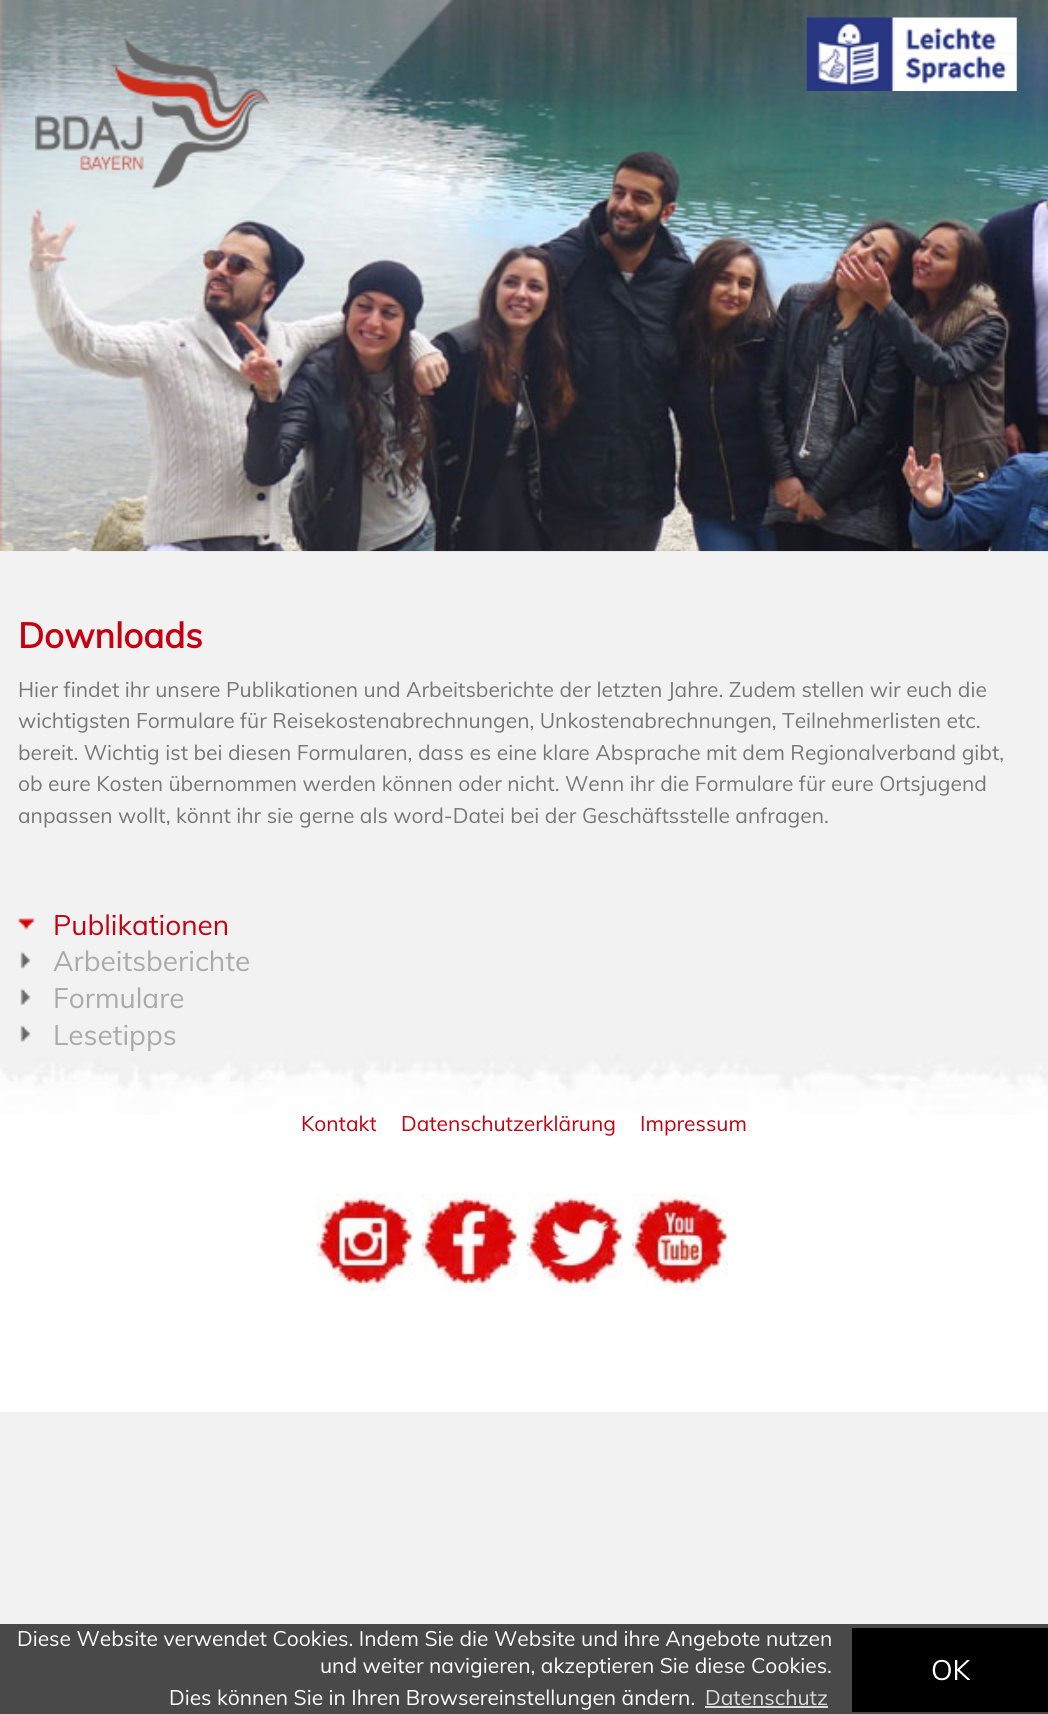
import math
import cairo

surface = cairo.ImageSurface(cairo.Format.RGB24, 1048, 1714)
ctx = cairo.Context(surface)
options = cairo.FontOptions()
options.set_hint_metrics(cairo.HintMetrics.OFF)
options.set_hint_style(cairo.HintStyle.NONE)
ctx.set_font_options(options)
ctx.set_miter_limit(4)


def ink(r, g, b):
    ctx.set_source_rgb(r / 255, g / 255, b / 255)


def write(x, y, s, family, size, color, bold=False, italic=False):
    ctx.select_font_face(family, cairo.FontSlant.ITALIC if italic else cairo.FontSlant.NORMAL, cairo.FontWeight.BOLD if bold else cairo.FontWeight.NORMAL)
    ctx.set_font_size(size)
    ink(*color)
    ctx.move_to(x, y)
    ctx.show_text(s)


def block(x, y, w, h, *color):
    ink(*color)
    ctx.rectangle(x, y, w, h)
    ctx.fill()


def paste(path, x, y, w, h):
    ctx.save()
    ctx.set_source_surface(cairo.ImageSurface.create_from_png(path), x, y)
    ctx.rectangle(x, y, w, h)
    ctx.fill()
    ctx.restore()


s1 = dict(family="Muli", size=35, color=(197, 0, 16), bold=True)
s2 = dict(family="Muli", size=21, color=(119, 119, 119))
s3 = dict(family="Muli", size=28, color=(197, 0, 16))
s4 = dict(family="Muli", size=28, color=(170, 170, 170))
s5 = dict(family="Muli", size=21, color=(197, 0, 16))
s6 = dict(family="Muli", size=21, color=(255, 255, 255))
s7 = dict(family="Muli", size=21, color=(219, 219, 219))
s8 = dict(family="Muli", size=28, color=(255, 255, 255))

ink(242, 242, 242)
ctx.paint()
paste("pic1.png", 0, 0, 1048, 552)
paste("pic2.png", 0, 0, 453, 342)
paste("pic3.png", 35, 37, 235, 153)
paste("pic4.png", 806, 17, 211, 74)
write(18, 648, "Downloads", **s1)
write(18, 697, "Hier findet ihr unsere Publikationen und Arbeitsberichte der letzten Jahre. Zudem stellen wir euch die", **s2)
write(18, 728, "wichtigsten Formulare für Reisekostenabrechnungen, Unkostenabrechnungen, Teilnehmerlisten etc.", **s2)
write(18, 760, "bereit. Wichtig ist bei diesen Formularen, dass es eine klare Absprache mit dem Regionalverband gibt,", **s2)
write(18, 791, "ob eure Kosten übernommen werden können oder nicht. Wenn ihr die Formulare für eure Ortsjugend", **s2)
write(18, 823, "anpassen wollt, könnt ihr sie gerne als word-Datei bei der Geschäftsstelle anfragen.", **s2)
paste("pic5.png", 17, 918, 18, 12)
write(53, 935, "Publikationen", **s3)
paste("pic6.png", 20, 951, 11, 18)
write(53, 971, "Arbeitsberichte", **s4)
paste("pic7.png", 20, 988, 11, 18)
write(53, 1008, "Formulare", **s4)
paste("pic8.png", 20, 1025, 11, 17)
write(53, 1045, "Lesetipps", **s4)
block(0, 1115, 1048, 297, 255, 255, 255)
paste("pic9.png", 0, 1054, 1048, 61)
write(301, 1131, "Kontakt", **s5)
write(401, 1131, "Datenschutzerklärung", **s5)
write(640, 1131, "Impressum", **s5)
paste("pic10.png", 316, 1193, 97, 97)
paste("pic11.png", 421, 1193, 97, 97)
paste("pic12.png", 526, 1193, 97, 97)
paste("pic13.png", 631, 1193, 97, 97)
block(0, 1624, 1048, 90, 73, 73, 73)
write(17, 1646, "Diese Website verwendet Cookies. Indem Sie die Website und ihre Angebote nutzen", **s6)
write(320, 1673, "und weiter navigieren, akzeptieren Sie diese Cookies.", **s6)
write(169, 1705, "Dies können Sie in Ihren Browsereinstellungen ändern.", **s6)
write(705, 1705, "Datenschutz", **s7)
block(705, 1706, 123, 2, 219, 219, 219)
block(852, 1628, 196, 84, 0, 0, 0)
write(931, 1680, "OK", **s8)
surface.write_to_png("screenshot.png")
